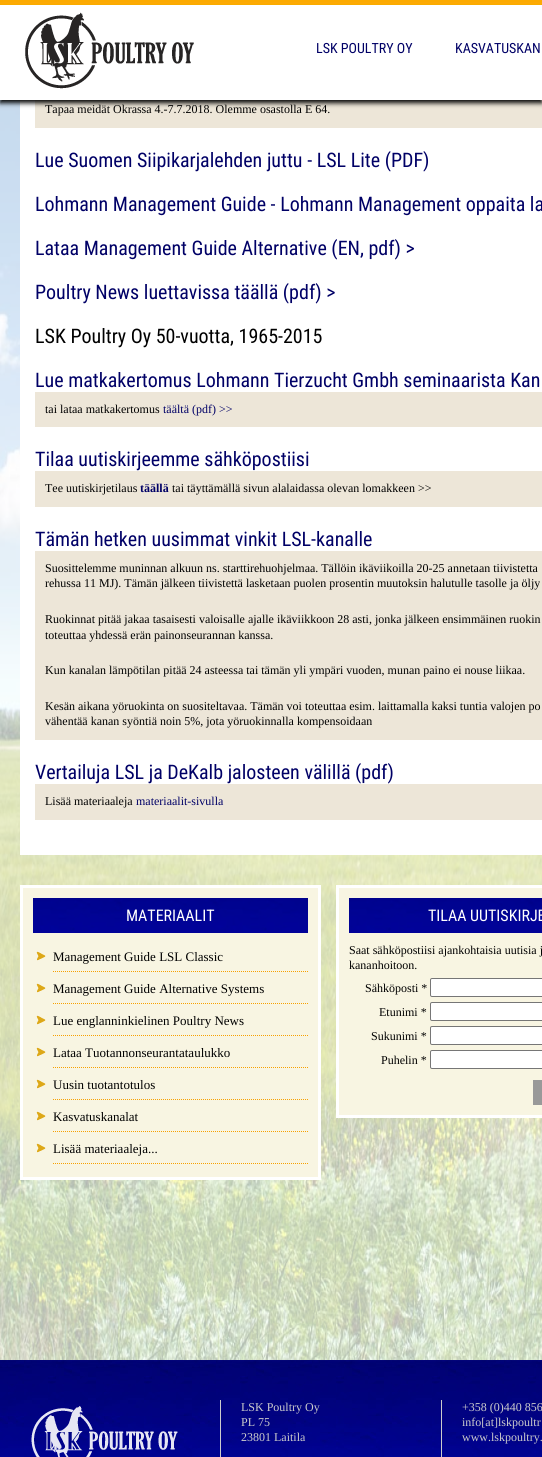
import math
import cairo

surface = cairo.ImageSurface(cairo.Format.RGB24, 542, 1457)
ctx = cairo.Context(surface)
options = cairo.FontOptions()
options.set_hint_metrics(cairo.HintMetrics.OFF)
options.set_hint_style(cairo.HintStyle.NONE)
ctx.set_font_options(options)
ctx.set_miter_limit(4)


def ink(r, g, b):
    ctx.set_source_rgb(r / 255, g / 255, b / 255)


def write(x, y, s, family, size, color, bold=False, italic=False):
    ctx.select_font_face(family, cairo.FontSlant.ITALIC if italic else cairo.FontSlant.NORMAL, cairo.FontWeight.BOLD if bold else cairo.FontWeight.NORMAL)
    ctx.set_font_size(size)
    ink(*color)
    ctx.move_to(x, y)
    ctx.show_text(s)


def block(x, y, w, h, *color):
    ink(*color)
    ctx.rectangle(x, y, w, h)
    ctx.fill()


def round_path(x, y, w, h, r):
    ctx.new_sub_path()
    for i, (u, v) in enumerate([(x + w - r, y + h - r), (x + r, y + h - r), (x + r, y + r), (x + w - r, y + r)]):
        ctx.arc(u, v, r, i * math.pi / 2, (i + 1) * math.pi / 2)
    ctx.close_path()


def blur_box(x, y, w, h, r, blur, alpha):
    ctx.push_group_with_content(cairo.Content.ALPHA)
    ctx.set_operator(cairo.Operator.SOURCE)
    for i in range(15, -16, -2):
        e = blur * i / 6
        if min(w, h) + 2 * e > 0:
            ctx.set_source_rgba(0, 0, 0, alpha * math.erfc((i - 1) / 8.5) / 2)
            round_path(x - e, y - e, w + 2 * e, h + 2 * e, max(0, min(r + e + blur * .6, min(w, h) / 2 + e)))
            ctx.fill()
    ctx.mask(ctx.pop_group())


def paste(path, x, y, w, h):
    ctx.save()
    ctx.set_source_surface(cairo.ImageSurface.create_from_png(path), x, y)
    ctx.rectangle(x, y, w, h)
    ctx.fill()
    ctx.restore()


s1 = dict(family="Roboto Condensed", size=14, color=(0, 0, 102))
s2 = dict(family="Liberation Serif", size=12, color=(0, 0, 0))
s3 = dict(family="Roboto Condensed", size=20, color=(0, 0, 102))
s4 = dict(family="Roboto Condensed", size=20, color=(0, 0, 0))
s5 = dict(family="Liberation Serif", size=12, color=(0, 0, 102))
s6 = dict(family="Liberation Serif", size=12, color=(0, 0, 102), bold=True)
s7 = dict(family="Roboto Condensed", size=16, color=(255, 255, 255))
s8 = dict(family="Liberation Serif", size=13, color=(0, 0, 0))
s9 = dict(family="Liberation Serif", size=12, color=(204, 204, 204))

ink(255, 255, 255)
ctx.paint()
paste("pic3.png", 0, 100, 542, 1260)
block(20, 100, 522, 755, 255, 255, 255)
block(35, 100, 507, 28, 237, 230, 216)
ink(0, 0, 0)
blur_box(0, 3, 542, 100, 0, 2.5, 1)
block(0, 5, 542, 95, 255, 255, 255)
paste("pic1.png", 0, 0, 542, 5)
paste("pic2.png", 25, 12, 169, 77)
write(316, 53, "LSK POULTRY OY", **s1)
write(455, 53, "KASVATUSKAN", **s1)
write(45, 113, "Tapaa meidät Okrassa 4.-7.7.2018. Olemme osastolla E 64.", **s2)
write(35, 167, "Lue Suomen Siipikarjalehden juttu - LSL Lite (PDF)", **s3)
write(35, 211, "Lohmann Management Guide - Lohmann Management oppaita la", **s3)
write(35, 255, "Lataa Management Guide Alternative (EN, pdf) >", **s3)
write(35, 299, "Poultry News luettavissa täällä (pdf) >", **s3)
write(35, 343, "LSK Poultry Oy 50-vuotta, 1965-2015", **s4)
write(35, 387, "Lue matkakertomus Lohmann Tierzucht Gmbh seminaarista Kan", **s3)
block(35, 392, 507, 35, 237, 230, 216)
write(45, 413, "tai lataa matkakertomus", **s2)
write(163, 413, "täältä (pdf) >>", **s5)
write(35, 466, "Tilaa uutiskirjeemme sähköpostiisi", **s3)
block(35, 471, 507, 36, 237, 230, 216)
write(45, 492, "Tee uutiskirjetilaus", **s2)
write(140, 492, "täällä", **s6)
write(172, 492, "tai täyttämällä sivun alalaidassa olevan lomakkeen >>", **s2)
write(35, 546, "Tämän hetken uusimmat vinkit LSL-kanalle", **s3)
block(35, 551, 507, 189, 237, 230, 216)
write(45, 572, "Suosittelemme muninnan alkuun ns. starttirehuohjelmaa. Tällöin ikäviikoilla 20-25 annetaan tiivistetta", **s2)
write(45, 587, "rehussa 11 MJ). Tämän jälkeen tiivistettä lasketaan puolen prosentin muutoksin halutulle tasolle ja öljy", **s2)
write(45, 623, "Ruokinnat pitää jakaa tasaisesti valoisalle ajalle ikäviikkoon 28 asti, jonka jälkeen ensimmäinen ruokin", **s2)
write(45, 639, "toteuttaa yhdessä erän painonseurannan kanssa.", **s2)
write(45, 674, "Kun kanalan lämpötilan pitää 24 asteessa tai tämän yli ympäri vuoden, munan paino ei nouse liikaa.", **s2)
write(45, 710, "Kesän aikana yöruokinta on suositeltavaa. Tämän voi toteuttaa esim. laittamalla kaksi tuntia valojen po", **s2)
write(45, 725, "vähentää kanan syöntiä noin 5%, jota yöruokinnalla kompensoidaan", **s2)
write(35, 779, "Vertailuja LSL ja DeKalb jalosteen välillä (pdf)", **s3)
block(35, 784, 507, 36, 237, 230, 216)
write(45, 805, "Lisää materiaaleja", **s2)
write(136, 805, "materiaalit-sivulla", **s5)
ink(248, 245, 226)
ctx.rectangle(21.5, 886.5, 298, 292)
ctx.fill_preserve()
ink(255, 255, 255)
ctx.set_line_width(3)
ctx.stroke()
paste("pic4.png", 33, 898, 275, 35)
write(126, 921, "MATERIAALIT", **s7)
ctx.new_path()
ctx.move_to(53, 971.5)
ctx.line_to(308, 971.5)
ink(248, 161, 0)
ctx.set_line_width(1)
ctx.set_dash([1, 1])
ctx.stroke()
paste("pic5.png", 36, 951, 10, 10)
write(53, 961, "Management Guide LSL Classic", **s8)
ctx.new_path()
ctx.move_to(53, 1003.5)
ctx.line_to(308, 1003.5)
ink(248, 161, 0)
ctx.stroke()
paste("pic5.png", 36, 983, 10, 10)
write(53, 993, "Management Guide Alternative Systems", **s8)
ctx.new_path()
ctx.move_to(53, 1035.5)
ctx.line_to(308, 1035.5)
ink(248, 161, 0)
ctx.stroke()
paste("pic5.png", 36, 1015, 10, 10)
write(53, 1025, "Lue englanninkielinen Poultry News", **s8)
ctx.new_path()
ctx.move_to(53, 1067.5)
ctx.line_to(308, 1067.5)
ink(248, 161, 0)
ctx.stroke()
paste("pic5.png", 36, 1047, 10, 10)
write(53, 1057, "Lataa Tuotannonseurantataulukko", **s8)
ctx.new_path()
ctx.move_to(53, 1099.5)
ctx.line_to(308, 1099.5)
ink(248, 161, 0)
ctx.stroke()
paste("pic5.png", 36, 1079, 10, 10)
write(53, 1089, "Uusin tuotantotulos", **s8)
ctx.new_path()
ctx.move_to(53, 1131.5)
ctx.line_to(308, 1131.5)
ink(248, 161, 0)
ctx.stroke()
paste("pic5.png", 36, 1111, 10, 10)
write(53, 1121, "Kasvatuskanalat", **s8)
ctx.new_path()
ctx.move_to(53, 1163.5)
ctx.line_to(308, 1163.5)
ink(248, 161, 0)
ctx.stroke()
paste("pic5.png", 36, 1143, 10, 10)
write(53, 1153, "Lisää materiaaleja...", **s8)
ink(248, 245, 226)
ctx.rectangle(337.5, 886.5, 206, 230)
ctx.fill_preserve()
ink(255, 255, 255)
ctx.set_line_width(3)
ctx.set_dash([])
ctx.stroke()
paste("pic6.png", 349, 898, 193, 35)
write(428, 921, "TILAA UUTISKIRJE", **s7)
write(349, 954, "Saat sähköpostiisi ajankohtaisia uutisia j", **s2)
write(349, 969, "kananhoitoon.", **s2)
write(365, 992, "Sähköposti *", **s2)
ink(255, 255, 255)
round_path(430.5, 978.5, 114, 18, 1.5)
ctx.fill_preserve()
ink(118, 118, 118)
ctx.set_line_width(1)
ctx.stroke()
write(379, 1016, "Etunimi *", **s2)
ink(255, 255, 255)
round_path(430.5, 1002.5, 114, 18, 1.5)
ctx.fill_preserve()
ink(118, 118, 118)
ctx.stroke()
write(371, 1040, "Sukunimi *", **s2)
ink(255, 255, 255)
round_path(430.5, 1026.5, 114, 18, 1.5)
ctx.fill_preserve()
ink(118, 118, 118)
ctx.stroke()
write(381, 1064, "Puhelin *", **s2)
ink(255, 255, 255)
round_path(430.5, 1050.5, 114, 18, 1.5)
ctx.fill_preserve()
ink(118, 118, 118)
ctx.stroke()
block(533, 1080, 9, 25, 153, 153, 153)
paste("pic7.png", 0, 1360, 542, 97)
block(220, 1400, 1, 57, 204, 204, 204)
paste("pic8.png", 31, 1406, 147, 51)
block(441, 1400, 1, 57, 204, 204, 204)
write(241, 1411, "LSK Poultry Oy", **s9)
write(241, 1426, "PL 75", **s9)
write(241, 1441, "23801 Laitila", **s9)
write(462, 1411, "+358 (0)440 856", **s9)
write(462, 1426, "info[at]lskpoultr", **s9)
write(462, 1441, "www.lskpoultry.", **s9)
surface.write_to_png("screenshot.png")
